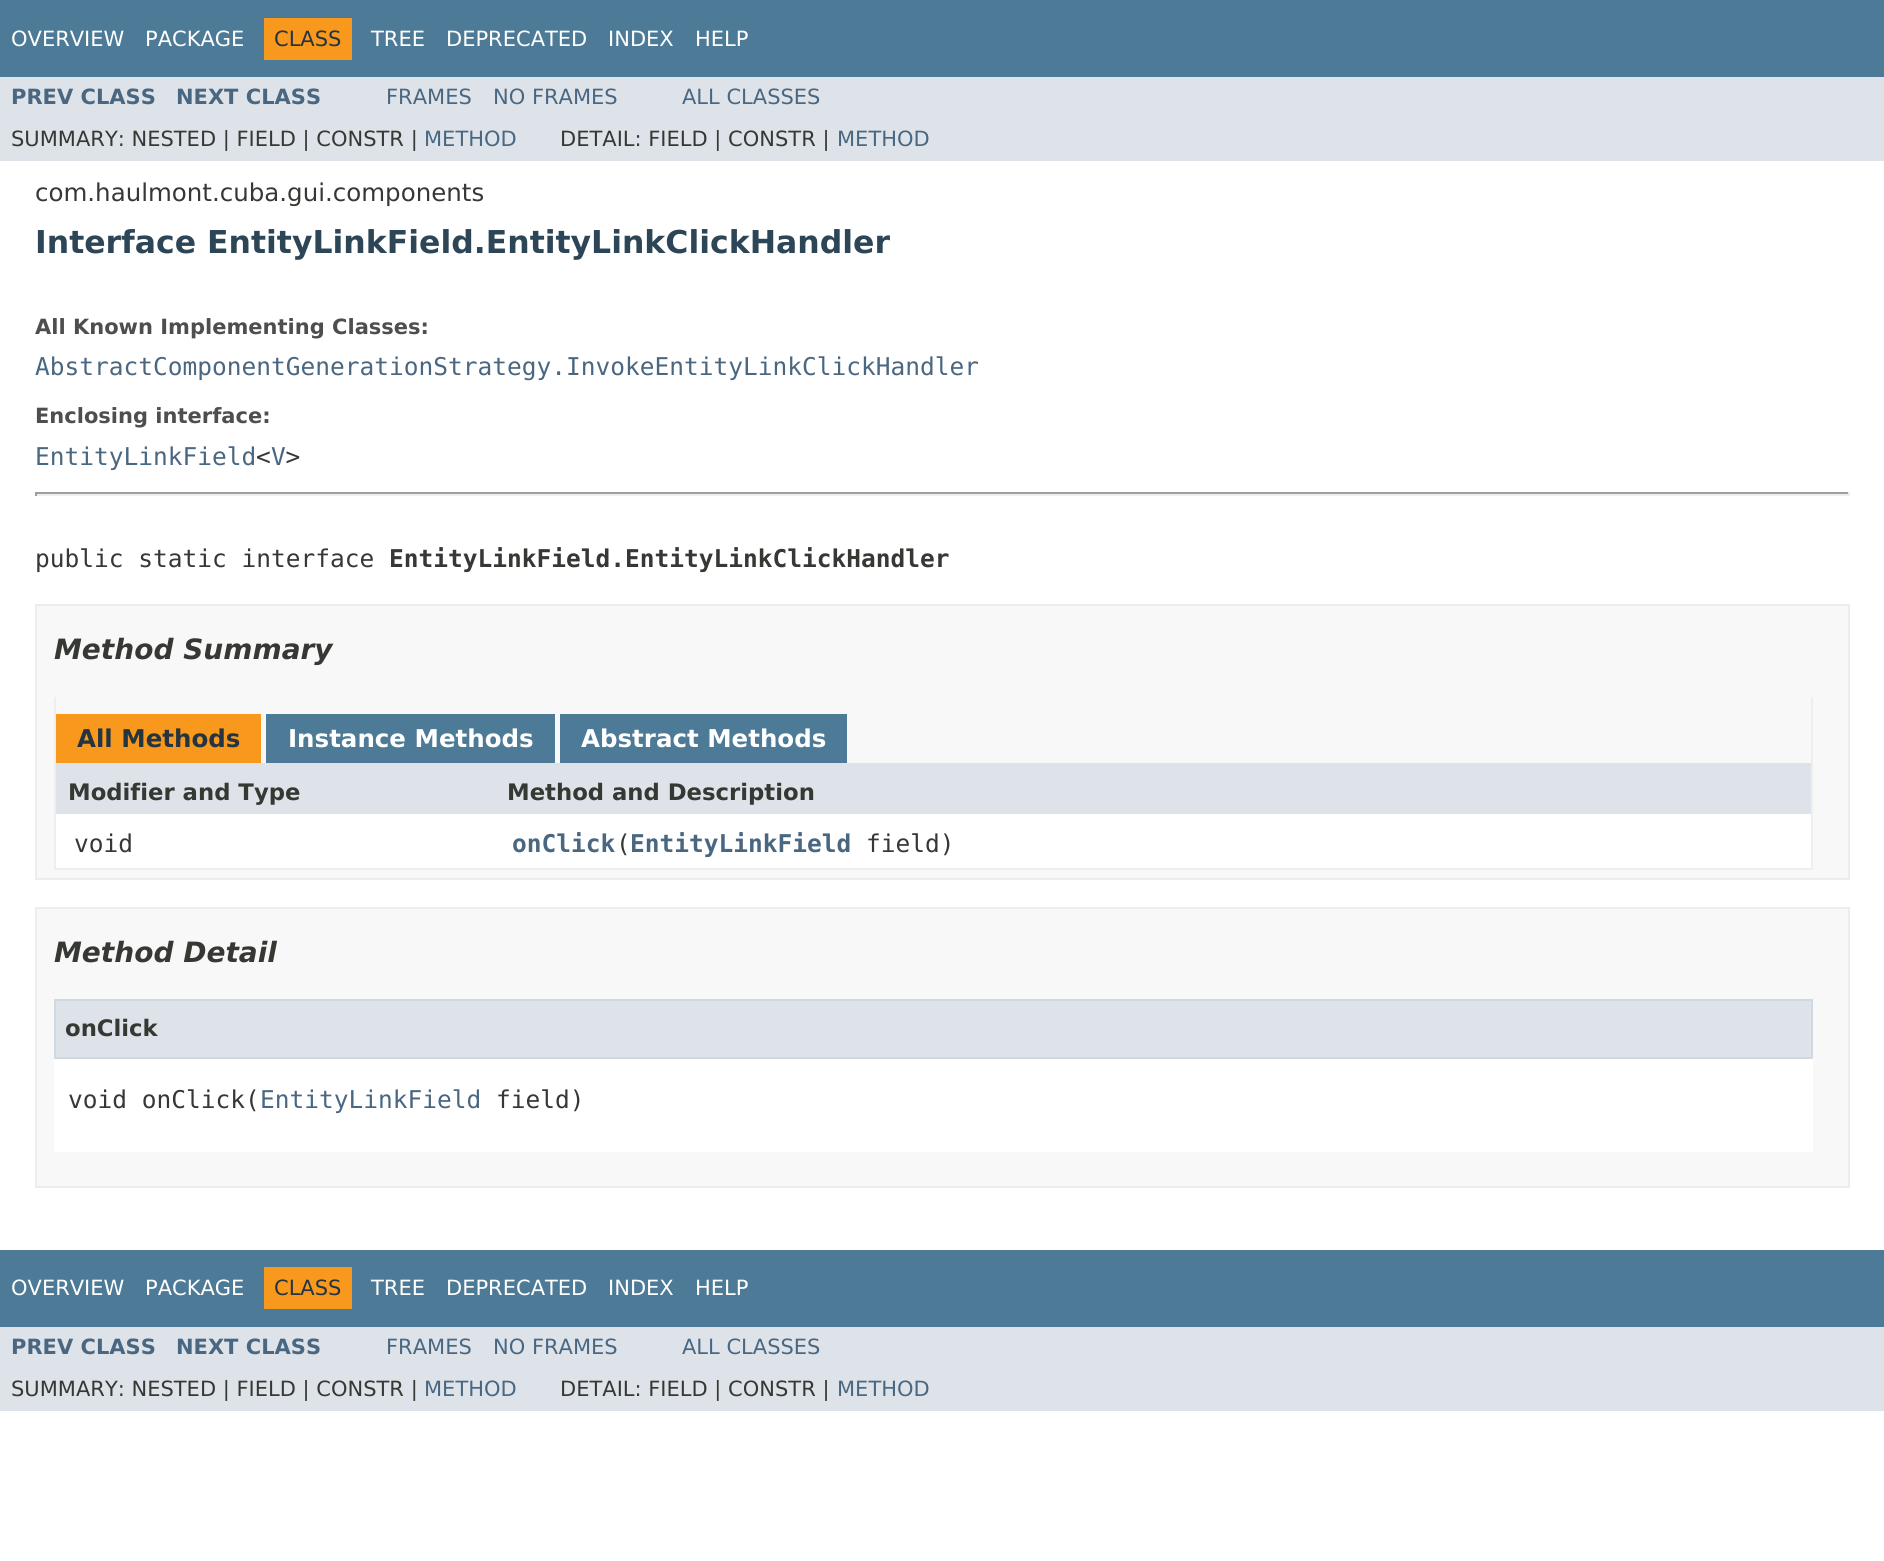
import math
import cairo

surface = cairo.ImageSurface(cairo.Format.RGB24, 1884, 1561)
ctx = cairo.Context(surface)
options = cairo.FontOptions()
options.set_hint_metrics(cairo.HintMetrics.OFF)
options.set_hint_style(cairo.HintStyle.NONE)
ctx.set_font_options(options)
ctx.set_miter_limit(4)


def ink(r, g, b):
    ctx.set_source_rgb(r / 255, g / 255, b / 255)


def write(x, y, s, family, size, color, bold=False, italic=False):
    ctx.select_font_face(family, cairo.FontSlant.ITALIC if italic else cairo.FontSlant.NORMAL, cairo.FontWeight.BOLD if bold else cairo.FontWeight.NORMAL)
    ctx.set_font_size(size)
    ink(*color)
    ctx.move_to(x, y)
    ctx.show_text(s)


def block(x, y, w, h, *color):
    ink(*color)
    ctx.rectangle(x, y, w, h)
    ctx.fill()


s1 = dict(family="DejaVu Sans", size=21, color=(255, 255, 255))
s2 = dict(family="DejaVu Sans", size=21, color=(37, 52, 65))
s3 = dict(family="DejaVu Sans", size=21, color=(74, 103, 130), bold=True)
s4 = dict(family="DejaVu Sans", size=21, color=(74, 103, 130))
s5 = dict(family="DejaVu Sans", size=21, color=(53, 56, 51))
s6 = dict(family="DejaVu Sans", size=24.5, color=(53, 56, 51))
s7 = dict(family="DejaVu Sans", size=31.5, color=(44, 69, 87), bold=True)
s8 = dict(family="DejaVu Sans", size=21, color=(78, 78, 78), bold=True)
s9 = dict(family="DejaVu Sans Mono", size=24.5, color=(74, 103, 130))
s10 = dict(family="DejaVu Sans Mono", size=24.5, color=(53, 56, 51))
s11 = dict(family="DejaVu Sans Mono", size=24.5, color=(53, 56, 51), bold=True)
s12 = dict(family="DejaVu Sans", size=28, color=(53, 56, 51), bold=True, italic=True)
s13 = dict(family="DejaVu Sans", size=24.5, color=(37, 52, 65), bold=True)
s14 = dict(family="DejaVu Sans", size=24.5, color=(255, 255, 255), bold=True)
s15 = dict(family="DejaVu Sans", size=22.75, color=(53, 56, 51), bold=True)
s16 = dict(family="DejaVu Sans Mono", size=24.5, color=(74, 103, 130), bold=True)

ink(255, 255, 255)
ctx.paint()
block(0, 0, 1884, 77, 77, 122, 151)
write(11, 46, "OVERVIEW", **s1)
write(145, 46, "PACKAGE", **s1)
block(264, 18, 88, 42, 248, 152, 29)
write(274, 46, "CLASS", **s2)
write(371, 46, "TREE", **s1)
write(446, 46, "DEPRECATED", **s1)
write(608, 46, "INDEX", **s1)
write(695, 46, "HELP", **s1)
block(0, 77, 1884, 84, 222, 227, 233)
write(11, 104, "PREV CLASS", **s3)
write(176, 104, "NEXT CLASS", **s3)
write(386, 104, "FRAMES", **s4)
write(493, 104, "NO FRAMES", **s4)
write(682, 104, "ALL CLASSES", **s4)
write(11, 146, "SUMMARY: NESTED | FIELD | CONSTR |", **s5)
write(424, 146, "METHOD", **s4)
write(560, 146, "DETAIL: FIELD | CONSTR |", **s5)
write(837, 146, "METHOD", **s4)
write(35, 201, "com.haulmont.cuba.gui.components", **s6)
write(35, 253, "Interface EntityLinkField.EntityLinkClickHandler", **s7)
write(35, 334, "All Known Implementing Classes:", **s8)
write(35, 375, "AbstractComponentGenerationStrategy.InvokeEntityLinkClickHandler", **s9)
write(35, 423, "Enclosing interface:", **s8)
write(35, 465, "EntityLinkField V", **s9)
write(256, 465, "< >", **s10)
block(35, 492, 1815, 2, 159, 159, 159)
block(1848, 492, 2, 4, 238, 238, 238)
block(35, 494, 1815, 2, 238, 238, 238)
block(35, 492, 2, 4, 159, 159, 159)
write(35, 567, "public static interface", **s10)
write(389, 567, "EntityLinkField.EntityLinkClickHandler", **s11)
ink(248, 248, 248)
ctx.rectangle(36, 605, 1813, 274)
ctx.fill_preserve()
ink(237, 237, 237)
ctx.stroke()
write(54, 659, "Method Summary", **s12)
block(1811, 697, 2, 173, 238, 238, 238)
block(54, 868, 1759, 2, 238, 238, 238)
block(54, 697, 2, 173, 238, 238, 238)
block(56, 714, 205, 49, 248, 152, 29)
write(77, 747, "All Methods", **s13)
block(266, 714, 289, 49, 77, 122, 151)
write(288, 747, "Instance Methods", **s14)
block(560, 714, 287, 49, 77, 122, 151)
write(581, 747, "Abstract Methods", **s14)
block(56, 763, 1755, 51, 222, 227, 233)
write(68, 800, "Modifier and Type", **s15)
write(507, 800, "Method and Description", **s15)
block(56, 814, 1755, 54, 255, 255, 255)
write(74, 852, "void", **s10)
write(512, 852, "onClick EntityLinkField", **s16)
write(616, 852, "(", **s10)
write(866, 852, "field)", **s10)
ink(248, 248, 248)
ctx.rectangle(36, 908, 1813, 279)
ctx.fill_preserve()
ink(237, 237, 237)
ctx.stroke()
write(54, 962, "Method Detail", **s12)
block(54, 1059, 1759, 93, 255, 255, 255)
ink(222, 227, 233)
ctx.rectangle(55, 1000, 1757, 58)
ctx.fill_preserve()
ink(208, 217, 224)
ctx.stroke()
write(65, 1036, "onClick", **s15)
write(68, 1108, "void onClick(", **s10)
write(260, 1108, "EntityLinkField", **s9)
write(496, 1108, "field)", **s10)
block(0, 1250, 1884, 77, 77, 122, 151)
write(11, 1295, "OVERVIEW", **s1)
write(145, 1295, "PACKAGE", **s1)
block(264, 1267, 88, 42, 248, 152, 29)
write(274, 1295, "CLASS", **s2)
write(371, 1295, "TREE", **s1)
write(446, 1295, "DEPRECATED", **s1)
write(608, 1295, "INDEX", **s1)
write(695, 1295, "HELP", **s1)
block(0, 1327, 1884, 84, 222, 227, 233)
write(11, 1354, "PREV CLASS", **s3)
write(176, 1354, "NEXT CLASS", **s3)
write(386, 1354, "FRAMES", **s4)
write(493, 1354, "NO FRAMES", **s4)
write(682, 1354, "ALL CLASSES", **s4)
write(11, 1396, "SUMMARY: NESTED | FIELD | CONSTR |", **s5)
write(424, 1396, "METHOD", **s4)
write(560, 1396, "DETAIL: FIELD | CONSTR |", **s5)
write(837, 1396, "METHOD", **s4)
surface.write_to_png("screenshot.png")
